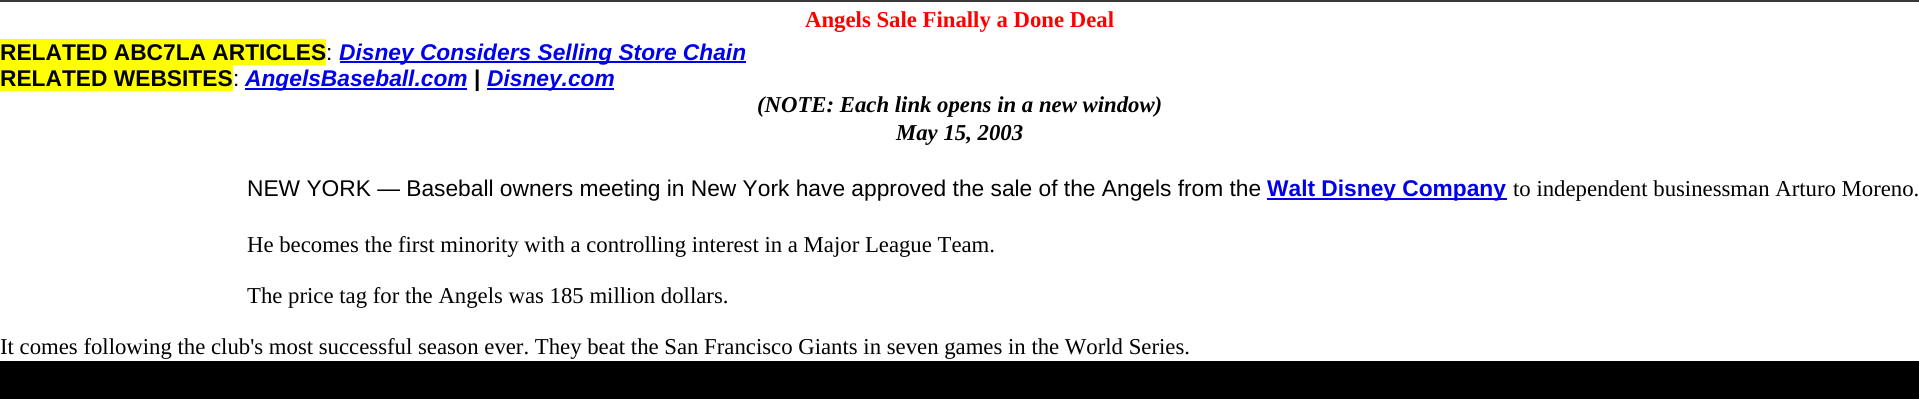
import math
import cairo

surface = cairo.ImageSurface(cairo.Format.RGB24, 1919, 399)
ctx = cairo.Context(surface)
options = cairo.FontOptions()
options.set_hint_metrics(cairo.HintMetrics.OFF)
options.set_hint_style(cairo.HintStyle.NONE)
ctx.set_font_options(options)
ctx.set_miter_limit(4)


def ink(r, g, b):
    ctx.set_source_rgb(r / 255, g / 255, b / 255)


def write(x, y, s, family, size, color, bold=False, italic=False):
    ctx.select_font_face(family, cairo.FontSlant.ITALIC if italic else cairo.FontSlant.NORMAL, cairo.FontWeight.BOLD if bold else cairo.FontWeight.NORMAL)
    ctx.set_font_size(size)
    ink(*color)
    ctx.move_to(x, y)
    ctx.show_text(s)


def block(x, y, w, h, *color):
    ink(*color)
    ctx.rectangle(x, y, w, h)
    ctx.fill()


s1 = dict(family="Liberation Serif", size=22.75, color=(255, 0, 0), bold=True)
s2 = dict(family="Liberation Sans", size=22.75, color=(0, 0, 0), bold=True)
s3 = dict(family="Liberation Sans", size=22.75, color=(0, 0, 0))
s4 = dict(family="Liberation Sans", size=22.75, color=(0, 0, 238), bold=True, italic=True)
s5 = dict(family="Liberation Serif", size=22.75, color=(0, 0, 0), bold=True, italic=True)
s6 = dict(family="Liberation Sans", size=22.75, color=(0, 0, 238), bold=True)
s7 = dict(family="Liberation Serif", size=22.75, color=(0, 0, 0))

ink(0, 0, 0)
ctx.paint()
block(0, 0, 1919, 2, 57, 57, 57)
block(0, 2, 1919, 359, 255, 255, 255)
write(805, 27, "Angels Sale Finally a Done Deal", **s1)
block(0, 39, 326, 26, 255, 255, 0)
write(0, 60, "RELATED ABC7LA ARTICLES", **s2)
write(326, 60, ":", **s3)
block(340, 61, 406, 2, 0, 0, 238)
write(339, 60, "Disney Considers Selling Store Chain", **s4)
block(0, 65, 233, 26, 255, 255, 0)
write(0, 86, "RELATED WEBSITES", **s2)
write(233, 86, ":", **s3)
block(245, 88, 222, 2, 0, 0, 238)
write(245, 86, "AngelsBaseball.com", **s4)
write(474, 86, "|", **s2)
block(487, 88, 127, 2, 0, 0, 238)
write(487, 86, "Disney.com", **s4)
write(757, 112, "(NOTE: Each link opens in a new window)", **s5)
write(896, 140, "May 15, 2003", **s5)
write(247, 196, "NEW YORK — Baseball owners meeting in New York have approved the sale of the Angels from the", **s3)
block(1267, 198, 240, 2, 0, 0, 238)
write(1267, 196, "Walt Disney Company", **s6)
write(1513, 196, "to independent businessman Arturo Moreno.", **s7)
write(247, 252, "He becomes the first minority with a controlling interest in a Major League Team.", **s7)
write(247, 303, "The price tag for the Angels was 185 million dollars.", **s7)
write(0, 354, "It comes following the club's most successful season ever. They beat the San Francisco Giants in seven games in the World Series.", **s7)
surface.write_to_png("screenshot.png")
